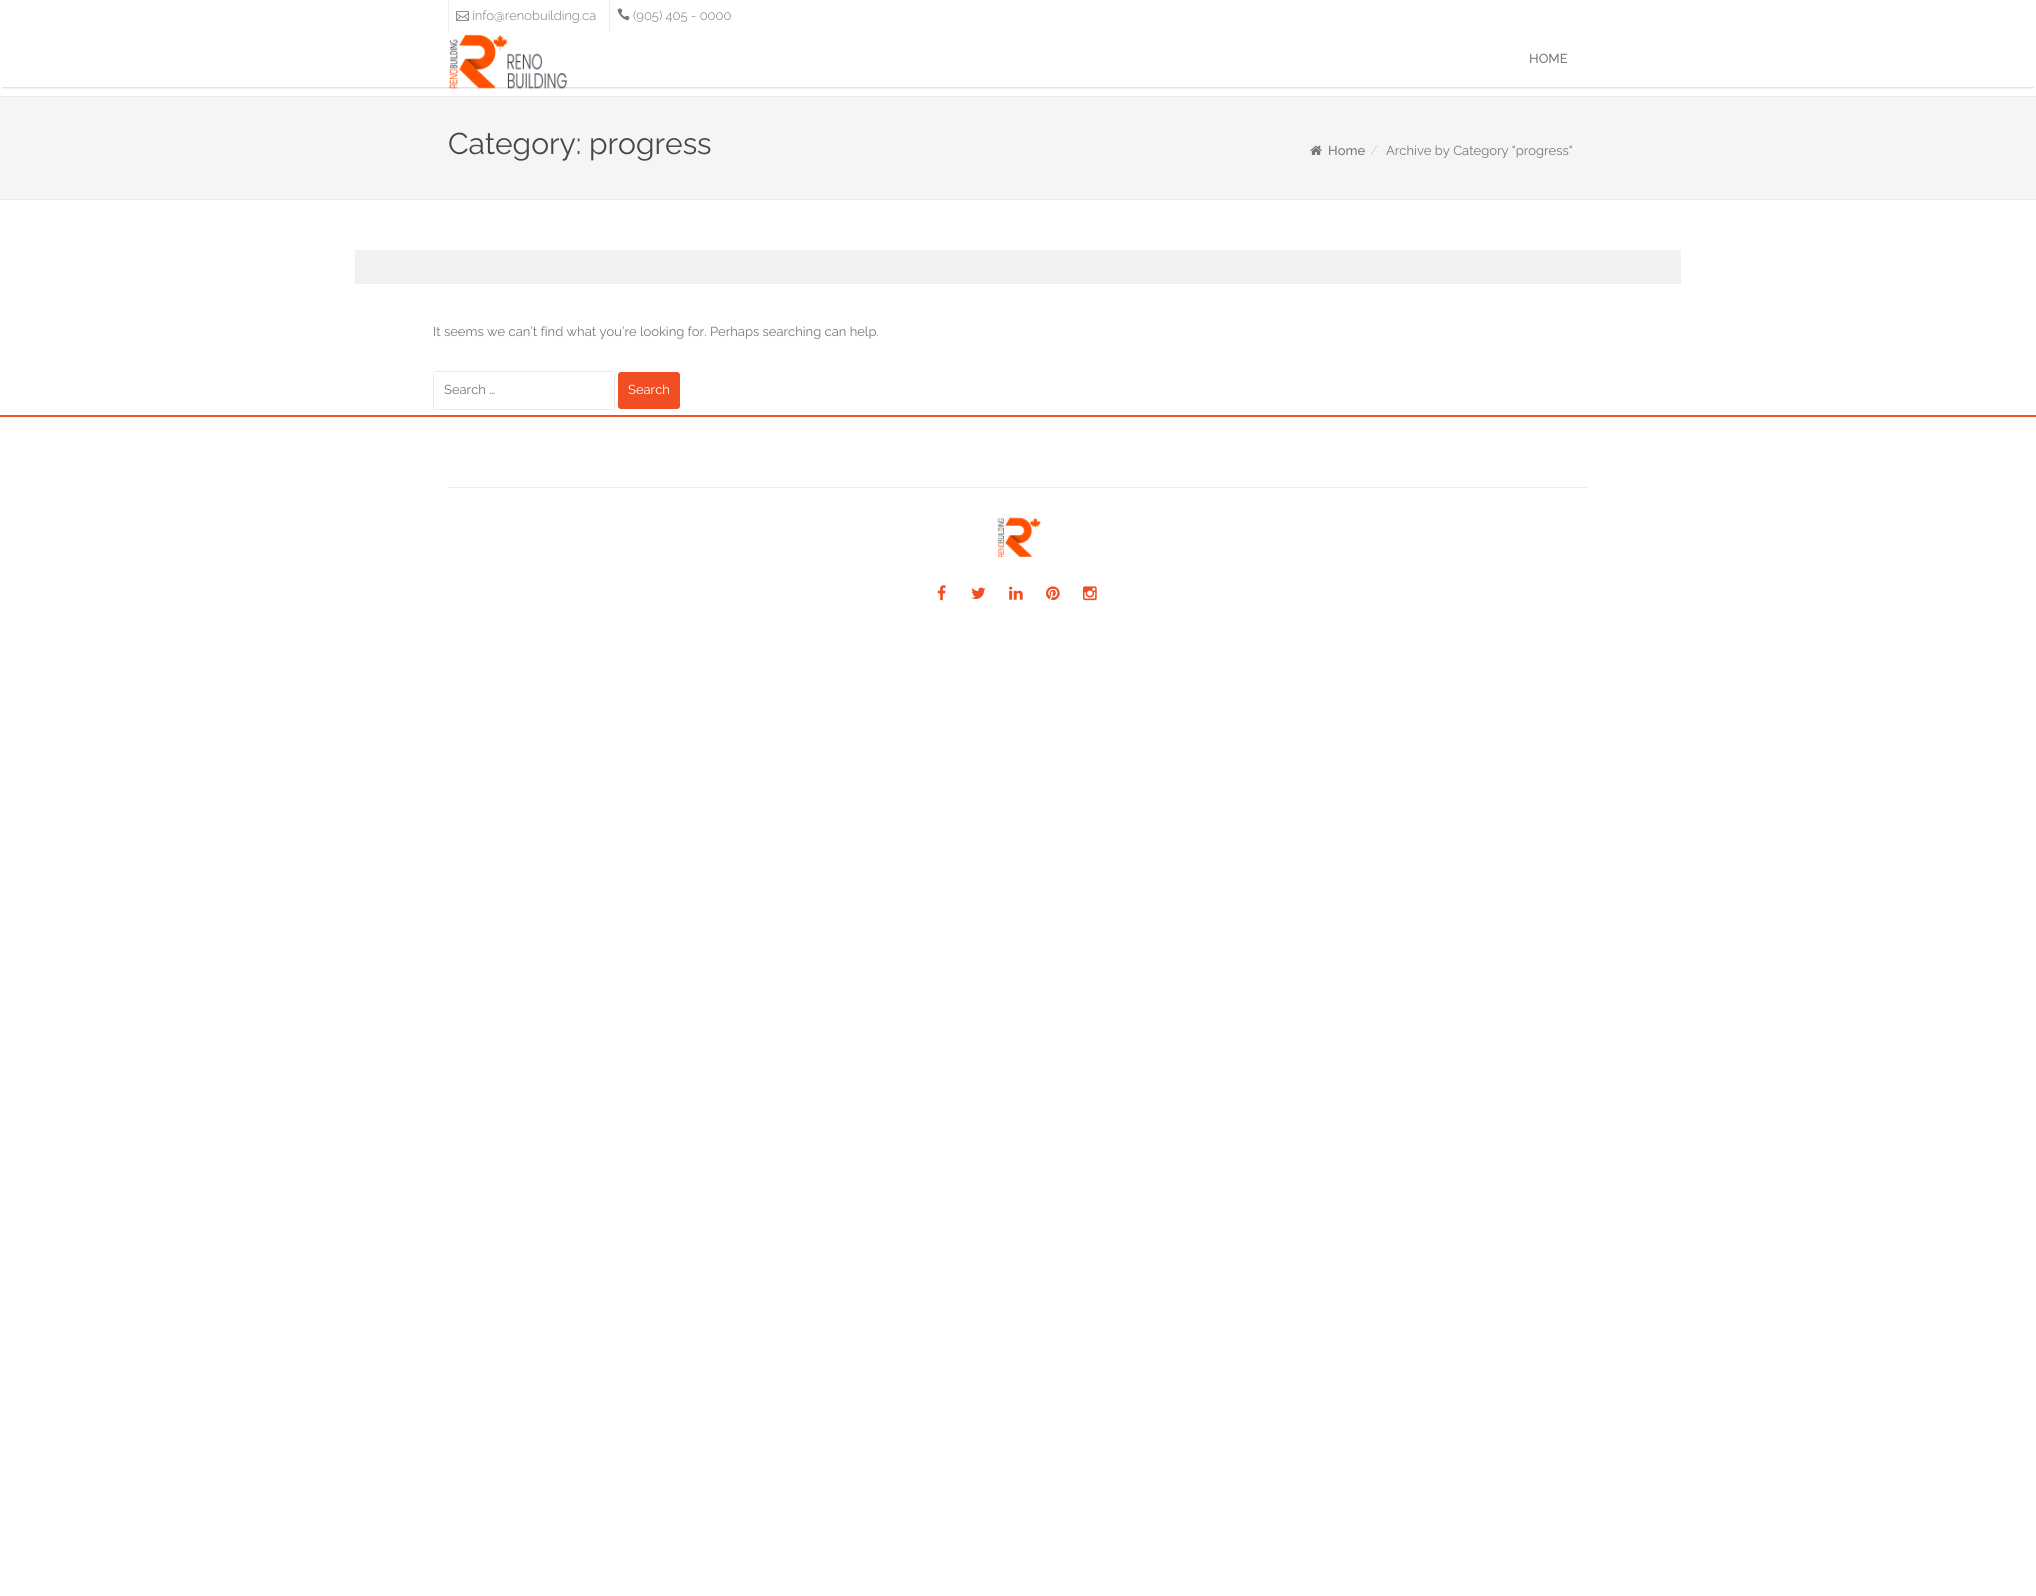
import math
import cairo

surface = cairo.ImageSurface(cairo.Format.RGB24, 2036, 1596)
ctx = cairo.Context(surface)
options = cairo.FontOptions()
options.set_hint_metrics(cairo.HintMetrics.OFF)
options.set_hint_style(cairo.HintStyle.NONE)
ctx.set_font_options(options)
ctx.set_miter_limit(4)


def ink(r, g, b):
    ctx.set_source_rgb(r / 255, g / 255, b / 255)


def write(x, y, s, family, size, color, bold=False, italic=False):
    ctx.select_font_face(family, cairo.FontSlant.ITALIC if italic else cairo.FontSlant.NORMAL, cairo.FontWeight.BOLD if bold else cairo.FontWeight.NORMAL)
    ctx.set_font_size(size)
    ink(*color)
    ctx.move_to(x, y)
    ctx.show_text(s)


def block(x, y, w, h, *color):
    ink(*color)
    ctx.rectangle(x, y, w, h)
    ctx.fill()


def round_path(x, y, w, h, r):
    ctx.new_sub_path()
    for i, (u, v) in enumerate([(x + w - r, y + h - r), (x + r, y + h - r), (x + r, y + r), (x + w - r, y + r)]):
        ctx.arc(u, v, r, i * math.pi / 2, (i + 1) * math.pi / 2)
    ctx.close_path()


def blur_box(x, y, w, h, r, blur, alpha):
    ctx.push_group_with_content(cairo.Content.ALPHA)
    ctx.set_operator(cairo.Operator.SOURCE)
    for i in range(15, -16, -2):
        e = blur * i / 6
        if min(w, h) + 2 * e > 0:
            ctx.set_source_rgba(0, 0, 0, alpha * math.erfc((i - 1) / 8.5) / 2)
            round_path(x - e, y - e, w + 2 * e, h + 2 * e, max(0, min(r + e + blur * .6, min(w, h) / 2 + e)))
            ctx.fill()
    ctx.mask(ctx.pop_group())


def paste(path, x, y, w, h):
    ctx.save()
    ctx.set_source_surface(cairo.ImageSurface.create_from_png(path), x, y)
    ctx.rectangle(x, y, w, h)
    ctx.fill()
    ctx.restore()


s1 = dict(family="Raleway Light", size=13, color=(119, 119, 119))
s2 = dict(family="Raleway Medium", size=13, color=(119, 119, 119))
s3 = dict(family="Raleway", size=30, color=(71, 71, 71))
s4 = dict(family="Raleway", size=13, color=(204, 204, 204))
s5 = dict(family="Raleway", size=13, color=(119, 119, 119))
s6 = dict(family="Raleway", size=13, color=(255, 255, 255))

ink(255, 255, 255)
ctx.paint()
ctx.save()
ctx.rectangle(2, 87, 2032, 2)
ctx.clip()
ink(0, 0, 0)
blur_box(3, 6, 2030, 81, 0, 1.5, 0.3)
ctx.restore()
block(448, 0, 1, 32, 238, 238, 238)
paste("pic1.png", 456, 11, 13, 10)
write(472, 20, "info@renobuilding.ca", **s1)
block(609, 0, 1, 32, 238, 238, 238)
paste("pic2.png", 617, 8, 13, 13)
write(633, 20, "(905) 405 - 0000", **s1)
paste("pic3.png", 449, 34, 119, 55)
write(1529, 63, "HOME", **s2)
block(0, 97, 2036, 102, 245, 245, 245)
block(0, 96, 2036, 1, 234, 234, 234)
block(0, 199, 2036, 1, 234, 234, 234)
write(448, 154, "Category: progress", **s3)
paste("pic4.png", 1310, 145, 12, 10)
write(1328, 155, "Home", **s2)
write(1370, 155, "/", **s4)
write(1386, 155, "Archive by Category \"progress\"", **s5)
block(355, 250, 1326, 33, 242, 242, 242)
block(355, 283, 1326, 1, 238, 238, 238)
write(433, 336, "It seems we can’t find what you’re looking for. Perhaps searching can help.", **s5)
round_path(433.5, 371.5, 181, 38, 2.5)
ink(234, 234, 234)
ctx.set_line_width(1)
ctx.stroke()
write(444, 394, "Search …", **s5)
ink(240, 78, 35)
round_path(618, 372, 62, 37, 3)
ctx.fill()
write(628, 394, "Search", **s6)
block(0, 415, 2036, 2, 240, 78, 35)
block(448, 487, 1140, 1, 238, 238, 238)
paste("pic5.png", 997, 517, 44, 41)
paste("pic6.png", 937, 585, 9, 16)
paste("pic7.png", 971, 587, 15, 12)
paste("pic8.png", 1009, 586, 14, 14)
paste("pic9.png", 1046, 586, 14, 15)
paste("pic10.png", 1083, 586, 14, 15)
surface.write_to_png("screenshot.png")
